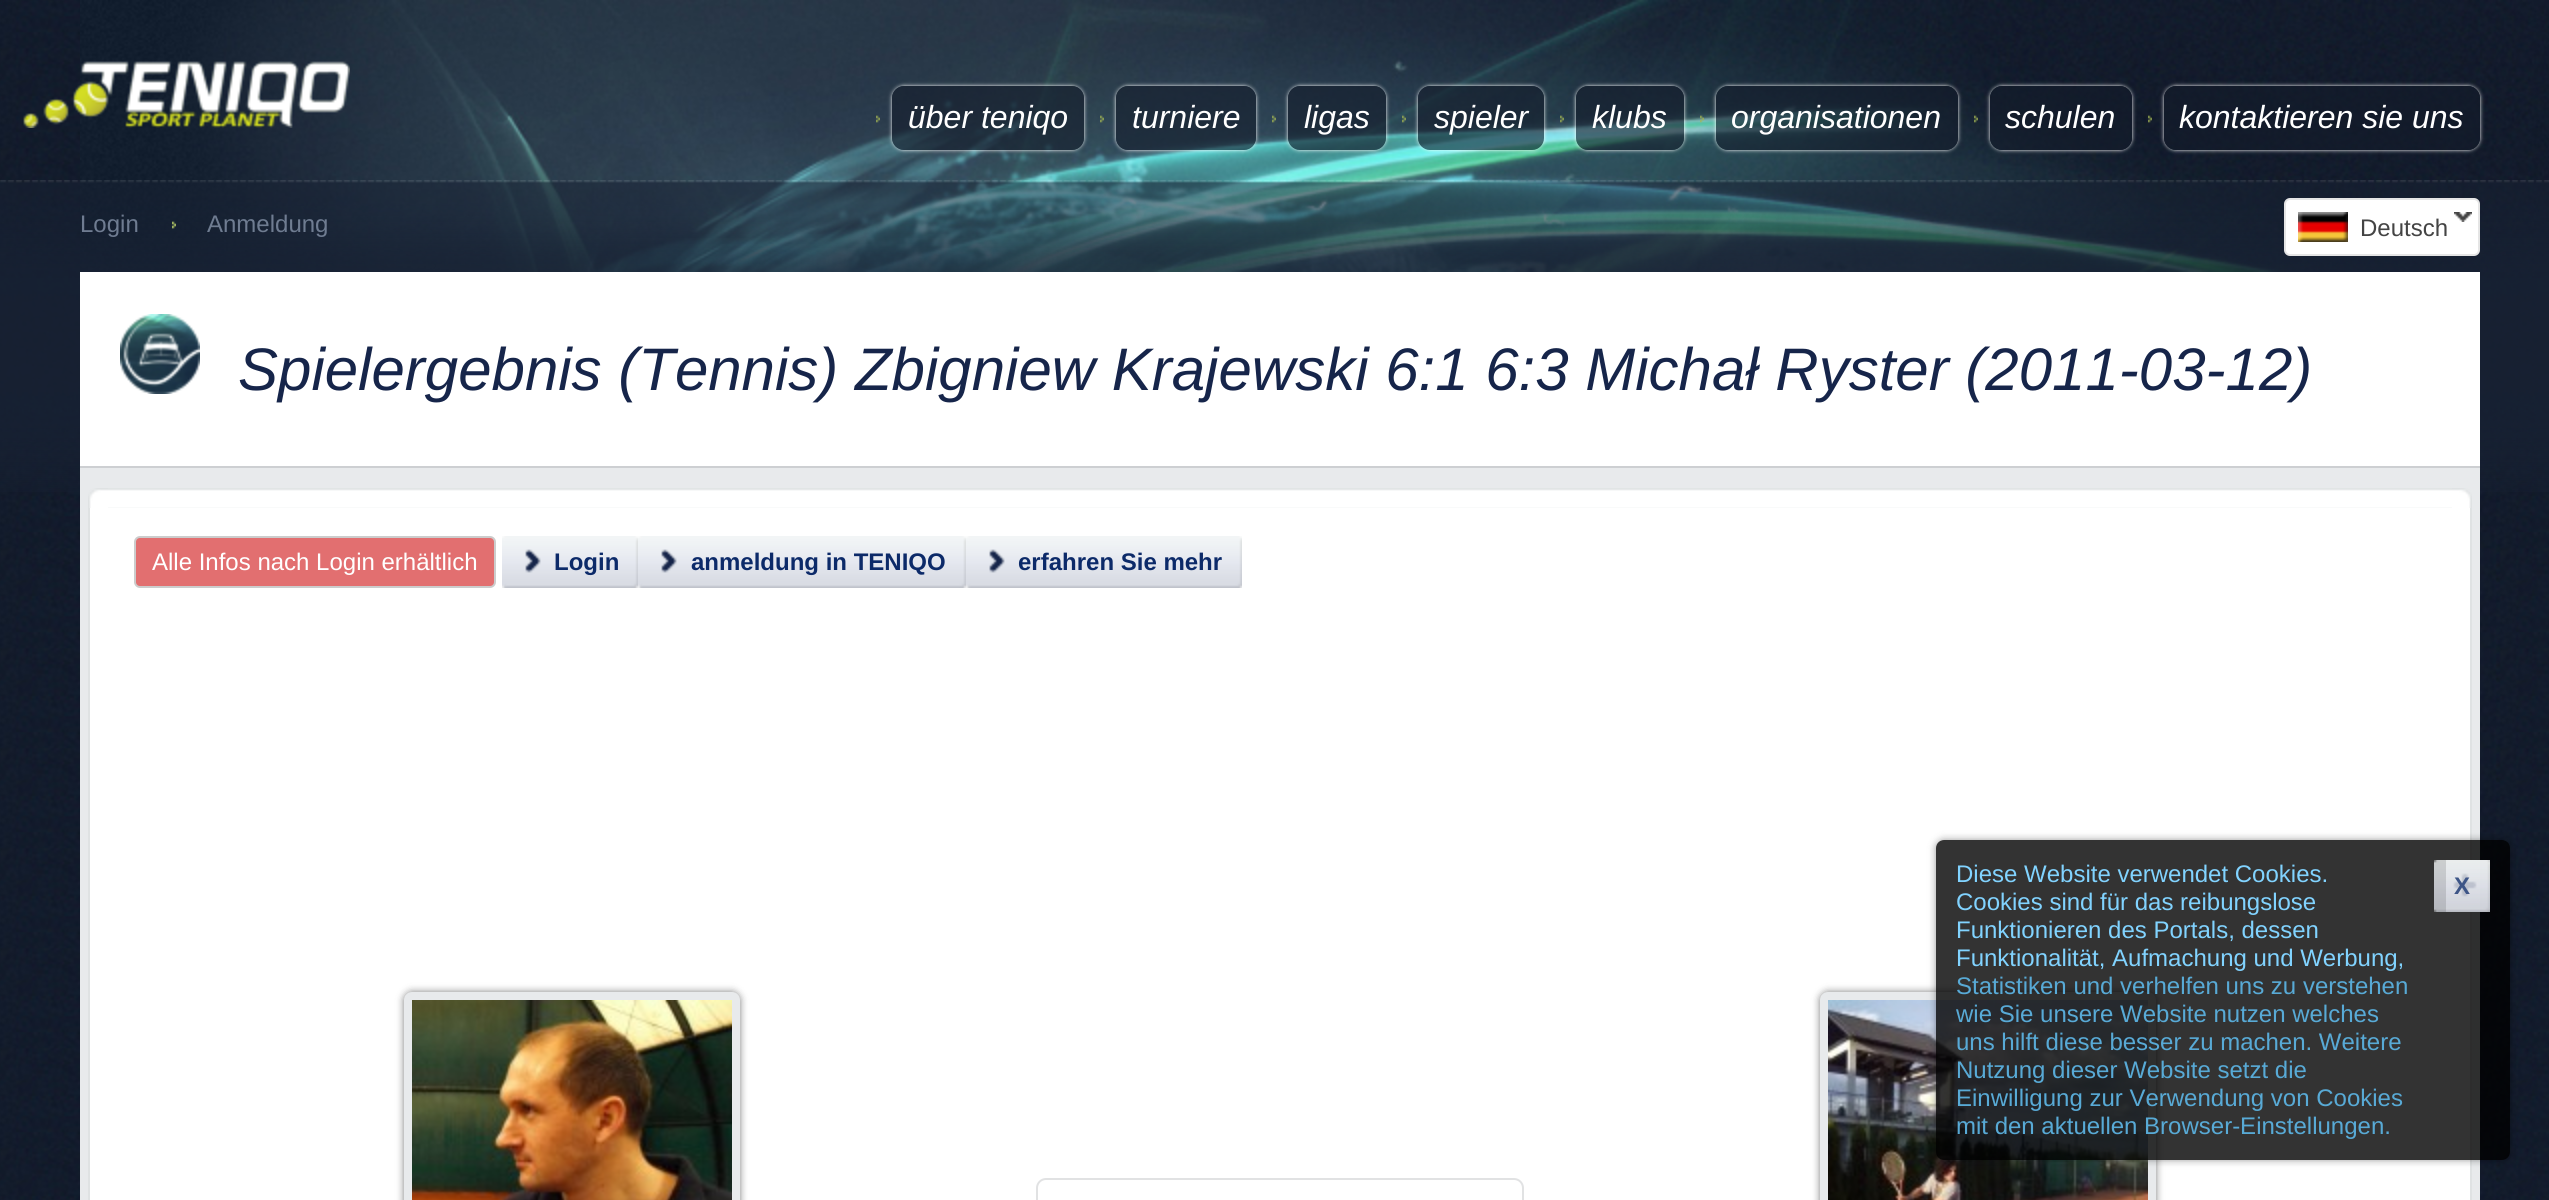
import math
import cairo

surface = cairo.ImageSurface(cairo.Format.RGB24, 2549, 1200)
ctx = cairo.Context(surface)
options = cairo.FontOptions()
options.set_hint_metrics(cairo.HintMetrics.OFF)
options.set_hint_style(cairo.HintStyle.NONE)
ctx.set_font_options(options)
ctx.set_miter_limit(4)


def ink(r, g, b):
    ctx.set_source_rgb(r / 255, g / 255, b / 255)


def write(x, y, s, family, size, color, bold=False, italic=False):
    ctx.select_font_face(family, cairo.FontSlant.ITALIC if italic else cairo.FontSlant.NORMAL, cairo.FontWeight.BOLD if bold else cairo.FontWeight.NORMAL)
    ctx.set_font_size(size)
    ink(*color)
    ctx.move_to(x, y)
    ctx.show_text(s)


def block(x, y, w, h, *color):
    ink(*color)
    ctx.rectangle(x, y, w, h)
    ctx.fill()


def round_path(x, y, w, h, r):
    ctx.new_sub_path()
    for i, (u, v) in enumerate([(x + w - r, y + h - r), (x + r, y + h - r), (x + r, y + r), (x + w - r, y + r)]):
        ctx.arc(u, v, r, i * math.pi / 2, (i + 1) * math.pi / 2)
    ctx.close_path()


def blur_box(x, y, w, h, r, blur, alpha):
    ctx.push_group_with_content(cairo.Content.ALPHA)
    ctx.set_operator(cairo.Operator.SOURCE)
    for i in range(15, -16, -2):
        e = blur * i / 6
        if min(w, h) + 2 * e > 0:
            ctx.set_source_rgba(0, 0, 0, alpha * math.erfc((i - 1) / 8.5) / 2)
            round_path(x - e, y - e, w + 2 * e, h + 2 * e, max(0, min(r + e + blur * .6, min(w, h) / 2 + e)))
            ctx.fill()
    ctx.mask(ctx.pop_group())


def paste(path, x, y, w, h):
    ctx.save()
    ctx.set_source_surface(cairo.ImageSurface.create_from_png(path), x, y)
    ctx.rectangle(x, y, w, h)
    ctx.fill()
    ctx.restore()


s1 = dict(family="Liberation Sans", size=32, color=(255, 255, 255), italic=True)
s2 = dict(family="Liberation Sans", size=24, color=(111, 124, 145))
s3 = dict(family="Liberation Sans", size=24, color=(68, 68, 68))
s4 = dict(family="Liberation Sans", size=60, color=(22, 37, 74), italic=True)
s5 = dict(family="Liberation Sans", size=24, color=(255, 255, 255))
s6 = dict(family="Liberation Sans", size=24, color=(12, 42, 105), bold=True)
s7 = dict(family="Liberation Sans", size=24, color=(129, 211, 255))
s8 = dict(family="Liberation Sans", size=24, color=(88, 170, 214))
s9 = dict(family="Liberation Sans", size=24, color=(61, 85, 135), bold=True)

ink(255, 255, 255)
ctx.paint()
paste("pic1.png", 0, 0, 2549, 1200)
paste("pic2.png", 80, 0, 2469, 272)
paste("pic3.png", 23, 61, 327, 67)
paste("pic4.png", 876, 115, 4, 8)
ctx.save()
ctx.set_fill_rule(cairo.FillRule.EVEN_ODD)
ctx.new_path()
ctx.move_to(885, 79)
ctx.line_to(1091, 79)
ctx.line_to(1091, 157)
ctx.line_to(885, 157)
ctx.close_path()
ctx.move_to(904, 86)
ctx.line_to(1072, 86)
ctx.curve_to(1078.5, 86, 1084, 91.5, 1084, 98)
ctx.line_to(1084, 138)
ctx.curve_to(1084, 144.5, 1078.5, 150, 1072, 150)
ctx.line_to(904, 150)
ctx.curve_to(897.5, 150, 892, 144.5, 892, 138)
ctx.line_to(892, 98)
ctx.curve_to(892, 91.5, 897.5, 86, 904, 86)
ctx.close_path()
ctx.clip()
blur_box(892, 86, 192, 64, 12, 2, 1)
ctx.restore()
ctx.set_source_rgba(0.075, 0.11, 0.169, 0.6)
round_path(892, 86, 192, 64, 12)
ctx.fill()
write(908, 128, "über teniqo", **s1)
paste("pic5.png", 1100, 115, 4, 8)
ctx.save()
ctx.set_fill_rule(cairo.FillRule.EVEN_ODD)
ctx.new_path()
ctx.move_to(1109, 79)
ctx.line_to(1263, 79)
ctx.line_to(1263, 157)
ctx.line_to(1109, 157)
ctx.close_path()
ctx.move_to(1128, 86)
ctx.line_to(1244, 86)
ctx.curve_to(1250.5, 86, 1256, 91.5, 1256, 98)
ctx.line_to(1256, 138)
ctx.curve_to(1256, 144.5, 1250.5, 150, 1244, 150)
ctx.line_to(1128, 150)
ctx.curve_to(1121.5, 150, 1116, 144.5, 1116, 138)
ctx.line_to(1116, 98)
ctx.curve_to(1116, 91.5, 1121.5, 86, 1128, 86)
ctx.close_path()
ctx.clip()
ink(255, 255, 255)
blur_box(1116, 86, 140, 64, 12, 2, 1)
ctx.restore()
ctx.set_source_rgba(0.075, 0.11, 0.169, 0.6)
round_path(1116, 86, 140, 64, 12)
ctx.fill()
write(1132, 128, "turniere", **s1)
paste("pic6.png", 1272, 115, 4, 8)
ctx.save()
ctx.set_fill_rule(cairo.FillRule.EVEN_ODD)
ctx.new_path()
ctx.move_to(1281, 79)
ctx.line_to(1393, 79)
ctx.line_to(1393, 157)
ctx.line_to(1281, 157)
ctx.close_path()
ctx.move_to(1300, 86)
ctx.line_to(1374, 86)
ctx.curve_to(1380.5, 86, 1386, 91.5, 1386, 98)
ctx.line_to(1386, 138)
ctx.curve_to(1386, 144.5, 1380.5, 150, 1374, 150)
ctx.line_to(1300, 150)
ctx.curve_to(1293.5, 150, 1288, 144.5, 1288, 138)
ctx.line_to(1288, 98)
ctx.curve_to(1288, 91.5, 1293.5, 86, 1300, 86)
ctx.close_path()
ctx.clip()
ink(255, 255, 255)
blur_box(1288, 86, 98, 64, 12, 2, 1)
ctx.restore()
ctx.set_source_rgba(0.075, 0.11, 0.169, 0.6)
round_path(1288, 86, 98, 64, 12)
ctx.fill()
write(1304, 128, "ligas", **s1)
paste("pic7.png", 1402, 115, 4, 8)
ctx.save()
ctx.set_fill_rule(cairo.FillRule.EVEN_ODD)
ctx.new_path()
ctx.move_to(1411, 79)
ctx.line_to(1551, 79)
ctx.line_to(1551, 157)
ctx.line_to(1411, 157)
ctx.close_path()
ctx.move_to(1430, 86)
ctx.line_to(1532, 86)
ctx.curve_to(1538.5, 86, 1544, 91.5, 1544, 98)
ctx.line_to(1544, 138)
ctx.curve_to(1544, 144.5, 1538.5, 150, 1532, 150)
ctx.line_to(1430, 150)
ctx.curve_to(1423.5, 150, 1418, 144.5, 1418, 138)
ctx.line_to(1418, 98)
ctx.curve_to(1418, 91.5, 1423.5, 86, 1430, 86)
ctx.close_path()
ctx.clip()
ink(255, 255, 255)
blur_box(1418, 86, 126, 64, 12, 2, 1)
ctx.restore()
ctx.set_source_rgba(0.075, 0.11, 0.169, 0.6)
round_path(1418, 86, 126, 64, 12)
ctx.fill()
write(1434, 128, "spieler", **s1)
paste("pic8.png", 1560, 115, 4, 8)
ctx.save()
ctx.set_fill_rule(cairo.FillRule.EVEN_ODD)
ctx.new_path()
ctx.move_to(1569, 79)
ctx.line_to(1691, 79)
ctx.line_to(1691, 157)
ctx.line_to(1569, 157)
ctx.close_path()
ctx.move_to(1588, 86)
ctx.line_to(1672, 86)
ctx.curve_to(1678.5, 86, 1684, 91.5, 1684, 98)
ctx.line_to(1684, 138)
ctx.curve_to(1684, 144.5, 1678.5, 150, 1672, 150)
ctx.line_to(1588, 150)
ctx.curve_to(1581.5, 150, 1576, 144.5, 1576, 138)
ctx.line_to(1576, 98)
ctx.curve_to(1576, 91.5, 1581.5, 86, 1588, 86)
ctx.close_path()
ctx.clip()
ink(255, 255, 255)
blur_box(1576, 86, 108, 64, 12, 2, 1)
ctx.restore()
ctx.set_source_rgba(0.075, 0.11, 0.169, 0.6)
round_path(1576, 86, 108, 64, 12)
ctx.fill()
write(1592, 128, "klubs", **s1)
paste("pic9.png", 1700, 115, 4, 8)
ctx.save()
ctx.set_fill_rule(cairo.FillRule.EVEN_ODD)
ctx.new_path()
ctx.move_to(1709, 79)
ctx.line_to(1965, 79)
ctx.line_to(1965, 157)
ctx.line_to(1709, 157)
ctx.close_path()
ctx.move_to(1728, 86)
ctx.line_to(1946, 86)
ctx.curve_to(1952.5, 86, 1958, 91.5, 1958, 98)
ctx.line_to(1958, 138)
ctx.curve_to(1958, 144.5, 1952.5, 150, 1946, 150)
ctx.line_to(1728, 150)
ctx.curve_to(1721.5, 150, 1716, 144.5, 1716, 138)
ctx.line_to(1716, 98)
ctx.curve_to(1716, 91.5, 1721.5, 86, 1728, 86)
ctx.close_path()
ctx.clip()
ink(255, 255, 255)
blur_box(1716, 86, 242, 64, 12, 2, 1)
ctx.restore()
ctx.set_source_rgba(0.075, 0.11, 0.169, 0.6)
round_path(1716, 86, 242, 64, 12)
ctx.fill()
write(1731, 128, "organisationen", **s1)
paste("pic10.png", 1974, 115, 4, 8)
ctx.save()
ctx.set_fill_rule(cairo.FillRule.EVEN_ODD)
ctx.new_path()
ctx.move_to(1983, 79)
ctx.line_to(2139, 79)
ctx.line_to(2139, 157)
ctx.line_to(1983, 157)
ctx.close_path()
ctx.move_to(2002, 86)
ctx.line_to(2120, 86)
ctx.curve_to(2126.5, 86, 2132, 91.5, 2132, 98)
ctx.line_to(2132, 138)
ctx.curve_to(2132, 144.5, 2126.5, 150, 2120, 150)
ctx.line_to(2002, 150)
ctx.curve_to(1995.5, 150, 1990, 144.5, 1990, 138)
ctx.line_to(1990, 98)
ctx.curve_to(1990, 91.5, 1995.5, 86, 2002, 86)
ctx.close_path()
ctx.clip()
ink(255, 255, 255)
blur_box(1990, 86, 142, 64, 12, 2, 1)
ctx.restore()
ctx.set_source_rgba(0.075, 0.11, 0.169, 0.6)
round_path(1990, 86, 142, 64, 12)
ctx.fill()
write(2005, 128, "schulen", **s1)
paste("pic11.png", 2148, 115, 4, 8)
ctx.save()
ctx.set_fill_rule(cairo.FillRule.EVEN_ODD)
ctx.new_path()
ctx.move_to(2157, 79)
ctx.line_to(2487, 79)
ctx.line_to(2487, 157)
ctx.line_to(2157, 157)
ctx.close_path()
ctx.move_to(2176, 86)
ctx.line_to(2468, 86)
ctx.curve_to(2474.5, 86, 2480, 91.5, 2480, 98)
ctx.line_to(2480, 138)
ctx.curve_to(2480, 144.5, 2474.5, 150, 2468, 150)
ctx.line_to(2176, 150)
ctx.curve_to(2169.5, 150, 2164, 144.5, 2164, 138)
ctx.line_to(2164, 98)
ctx.curve_to(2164, 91.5, 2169.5, 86, 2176, 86)
ctx.close_path()
ctx.clip()
ink(255, 255, 255)
blur_box(2164, 86, 316, 64, 12, 2, 1)
ctx.restore()
ctx.set_source_rgba(0.075, 0.11, 0.169, 0.6)
round_path(2164, 86, 316, 64, 12)
ctx.fill()
write(2179, 128, "kontaktieren sie uns", **s1)
paste("pic25.png", 0, 180, 2549, 312)
write(80, 232, "Login", **s2)
paste("pic12.png", 172, 221, 4, 8)
write(207, 232, "Anmeldung", **s2)
ink(255, 255, 255)
round_path(2285, 199, 194, 56, 5)
ctx.fill_preserve()
ink(229, 229, 229)
ctx.stroke()
paste("pic13.png", 2298, 212, 50, 30)
paste("pic14.png", 2454, 212, 18, 10)
write(2360, 236, "Deutsch", **s3)
block(80, 468, 2400, 732, 232, 234, 236)
block(80, 272, 2400, 194, 255, 255, 255)
block(80, 466, 2400, 2, 205, 207, 210)
paste("pic15.png", 120, 314, 80, 80)
write(238, 390, "Spielergebnis (Tennis) Zbigniew Krajewski 6:1 6:3 Michał Ryster (2011-03-12)", **s4)
paste("pic16.png", 88, 488, 20, 20)
paste("pic17.png", 108, 488, 2344, 20)
paste("pic18.png", 2452, 488, 20, 20)
block(90, 508, 2380, 692, 255, 255, 255)
block(2470, 508, 2, 692, 223, 226, 227)
block(88, 508, 2, 692, 223, 226, 227)
ink(226, 111, 112)
round_path(135, 537, 360, 50, 5)
ctx.fill_preserve()
ink(204, 204, 204)
ctx.stroke()
write(152, 570, "Alle Infos nach Login erhältlich", **s5)
paste("pic19.png", 502, 536, 58, 52)
paste("pic20.png", 560, 536, 78, 52)
write(554, 570, "Login", **s6)
paste("pic19.png", 638, 536, 58, 52)
paste("pic21.png", 696, 536, 270, 52)
write(691, 570, "anmeldung in TENIQO", **s6)
paste("pic19.png", 966, 536, 58, 52)
paste("pic22.png", 1024, 536, 218, 52)
write(1018, 570, "erfahren Sie mehr", **s6)
ink(0, 0, 0)
blur_box(404, 992, 336, 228, 8, 4, 0.5)
ink(232, 234, 236)
round_path(404, 992, 336, 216, 8)
ctx.fill()
paste("pic23.png", 412, 1000, 320, 200)
round_path(1037, 1179, 486, 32, 9)
ink(225, 226, 227)
ctx.stroke()
ink(0, 0, 0)
blur_box(1820, 992, 336, 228, 8, 4, 0.5)
ink(232, 234, 236)
round_path(1820, 992, 336, 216, 8)
ctx.fill()
paste("pic24.png", 1828, 1000, 320, 200)
ctx.save()
ctx.set_fill_rule(cairo.FillRule.EVEN_ODD)
ctx.new_path()
ctx.move_to(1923, 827)
ctx.line_to(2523, 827)
ctx.line_to(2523, 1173)
ctx.line_to(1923, 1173)
ctx.close_path()
ctx.move_to(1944, 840)
ctx.line_to(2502, 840)
ctx.curve_to(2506.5, 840, 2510, 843.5, 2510, 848)
ctx.line_to(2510, 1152)
ctx.curve_to(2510, 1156.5, 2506.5, 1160, 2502, 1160)
ctx.line_to(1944, 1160)
ctx.curve_to(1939.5, 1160, 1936, 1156.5, 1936, 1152)
ctx.line_to(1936, 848)
ctx.curve_to(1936, 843.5, 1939.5, 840, 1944, 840)
ctx.close_path()
ctx.clip()
ink(0, 0, 0)
blur_box(1936, 840, 574, 320, 8, 4, 0.4)
ctx.restore()
ctx.set_source_rgba(0, 0, 0, 0.8)
round_path(1936, 840, 574, 320, 8)
ctx.fill()
write(1956, 882, "Diese Website verwendet Cookies.", **s7)
write(1956, 910, "Cookies sind für das reibungslose", **s7)
write(1956, 938, "Funktionieren des Portals, dessen", **s7)
write(1956, 966, "Funktionalität, Aufmachung und Werbung,", **s7)
write(1956, 994, "Statistiken und verhelfen uns zu verstehen", **s8)
write(1956, 1022, "wie Sie unsere Website nutzen welches", **s8)
write(1956, 1050, "uns hilft diese besser zu machen. Weitere", **s8)
write(1956, 1078, "Nutzung dieser Website setzt die", **s8)
write(1956, 1106, "Einwilligung zur Verwendung von Cookies", **s8)
write(1956, 1134, "mit den aktuellen Browser-Einstellungen.", **s8)
paste("pic26.png", 2434, 860, 56, 52)
paste("pic27.png", 2446, 860, 44, 52)
write(2454, 894, "X", **s9)
surface.write_to_png("screenshot.png")
